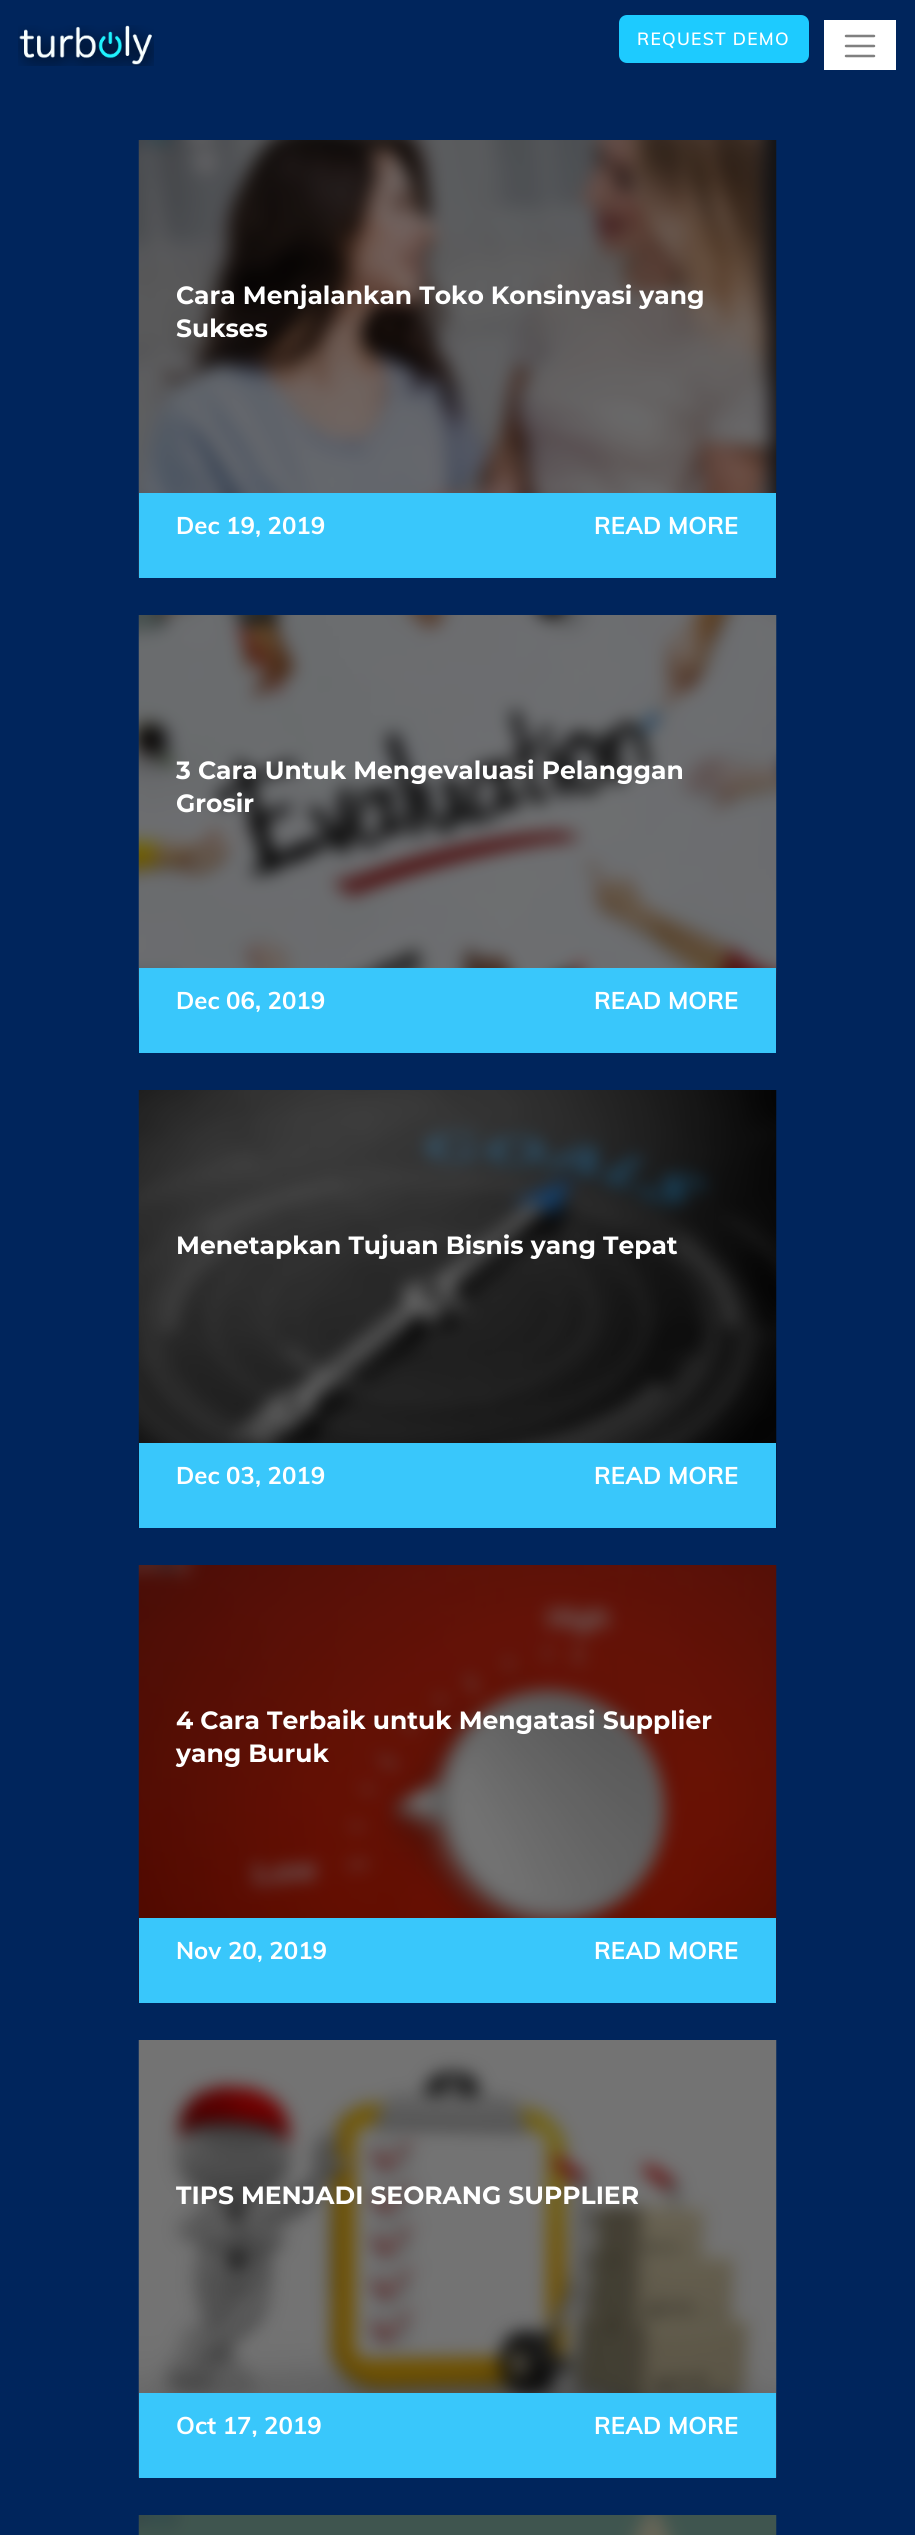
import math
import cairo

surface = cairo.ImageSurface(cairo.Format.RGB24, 915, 2535)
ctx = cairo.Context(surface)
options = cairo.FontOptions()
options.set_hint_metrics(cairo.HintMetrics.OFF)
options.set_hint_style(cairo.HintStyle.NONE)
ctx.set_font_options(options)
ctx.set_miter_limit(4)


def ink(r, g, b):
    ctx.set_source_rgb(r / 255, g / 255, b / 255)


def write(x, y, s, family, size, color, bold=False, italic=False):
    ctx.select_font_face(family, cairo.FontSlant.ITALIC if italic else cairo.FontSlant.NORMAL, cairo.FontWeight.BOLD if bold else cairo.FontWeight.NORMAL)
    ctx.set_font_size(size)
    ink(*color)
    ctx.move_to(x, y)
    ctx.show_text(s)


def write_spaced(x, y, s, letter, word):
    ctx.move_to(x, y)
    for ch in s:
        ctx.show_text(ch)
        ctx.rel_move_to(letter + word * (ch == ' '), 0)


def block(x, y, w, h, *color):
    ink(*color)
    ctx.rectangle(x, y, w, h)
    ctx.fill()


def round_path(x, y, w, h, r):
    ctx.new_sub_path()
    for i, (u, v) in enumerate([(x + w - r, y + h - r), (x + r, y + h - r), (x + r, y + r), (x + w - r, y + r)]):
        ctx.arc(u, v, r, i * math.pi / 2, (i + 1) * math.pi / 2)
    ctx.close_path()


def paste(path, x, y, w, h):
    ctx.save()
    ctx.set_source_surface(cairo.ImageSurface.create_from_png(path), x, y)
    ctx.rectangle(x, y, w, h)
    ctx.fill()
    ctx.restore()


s1 = dict(family="Montserrat", size=25, color=(255, 255, 255), bold=True)
s2 = dict(family="Muli", size=24, color=(255, 255, 255), bold=True)

ink(0, 37, 92)
ctx.paint()
paste("pic1.png", 18, 25, 136, 41)
block(824, 20, 72, 50, 255, 255, 255)
ctx.new_path()
ctx.move_to(846, 36)
ctx.line_to(874, 36)
ctx.move_to(846, 46)
ctx.line_to(874, 46)
ctx.move_to(846, 56)
ctx.line_to(874, 56)
ink(128, 128, 128)
ctx.set_line_width(2.5)
ctx.set_line_cap(cairo.LineCap.ROUND)
ctx.stroke()
ink(29, 203, 255)
round_path(619, 15, 190, 48, 8)
ctx.fill()
ctx.select_font_face("Muli SemiBold")
ctx.set_font_size(17.5)
ink(255, 255, 255)
write_spaced(637, 45, "REQUEST DEMO", 1.25, 0)
paste("pic2.png", 138, 140, 639, 438)
write(176, 304, "Cara Menjalankan Toko Konsinyasi yang", **s1)
write(176, 337, "Sukses", **s1)
block(139, 493, 637, 85, 57, 199, 251)
write(176, 534, "Dec 19, 2019", **s2)
write(594, 534, "READ MORE", **s2)
paste("pic3.png", 138, 615, 639, 402)
write(176, 779, "3 Cara Untuk Mengevaluasi Pelanggan", **s1)
write(176, 812, "Grosir", **s1)
block(139, 968, 637, 85, 57, 199, 251)
write(176, 1009, "Dec 06, 2019", **s2)
write(594, 1009, "READ MORE", **s2)
paste("pic4.png", 138, 1090, 639, 438)
write(176, 1254, "Menetapkan Tujuan Bisnis yang Tepat", **s1)
block(139, 1443, 637, 85, 57, 199, 251)
write(176, 1484, "Dec 03, 2019", **s2)
write(594, 1484, "READ MORE", **s2)
paste("pic5.png", 138, 1565, 639, 438)
write(176, 1729, "4 Cara Terbaik untuk Mengatasi Supplier", **s1)
write(176, 1762, "yang Buruk", **s1)
block(139, 1918, 637, 85, 57, 199, 251)
write(176, 1959, "Nov 20, 2019", **s2)
write(594, 1959, "READ MORE", **s2)
paste("pic6.png", 138, 2040, 639, 438)
write(176, 2204, "TIPS MENJADI SEORANG SUPPLIER", **s1)
block(139, 2393, 637, 85, 57, 199, 251)
write(176, 2434, "Oct 17, 2019", **s2)
write(594, 2434, "READ MORE", **s2)
paste("pic7.png", 138, 2515, 639, 20)
surface.write_to_png("screenshot.png")
